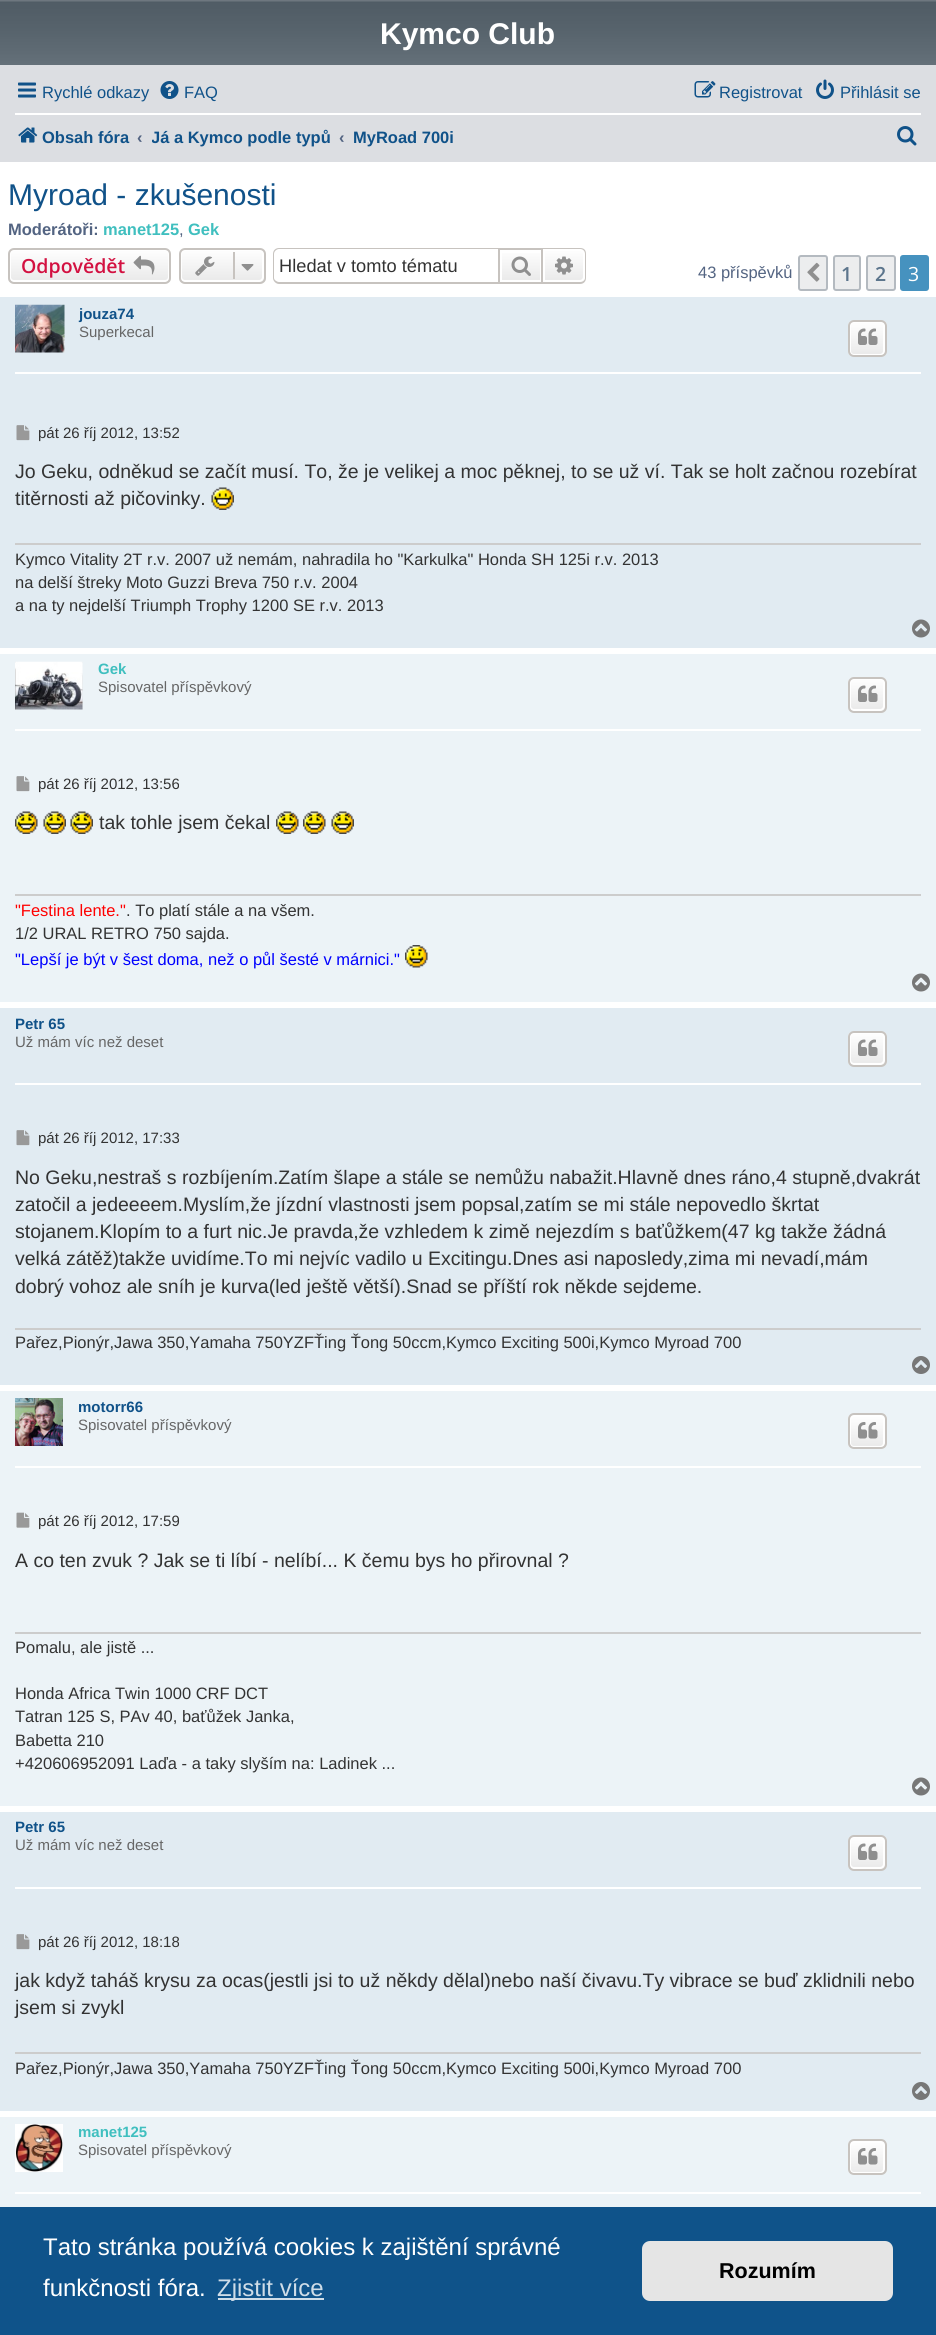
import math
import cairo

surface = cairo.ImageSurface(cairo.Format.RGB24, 936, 2335)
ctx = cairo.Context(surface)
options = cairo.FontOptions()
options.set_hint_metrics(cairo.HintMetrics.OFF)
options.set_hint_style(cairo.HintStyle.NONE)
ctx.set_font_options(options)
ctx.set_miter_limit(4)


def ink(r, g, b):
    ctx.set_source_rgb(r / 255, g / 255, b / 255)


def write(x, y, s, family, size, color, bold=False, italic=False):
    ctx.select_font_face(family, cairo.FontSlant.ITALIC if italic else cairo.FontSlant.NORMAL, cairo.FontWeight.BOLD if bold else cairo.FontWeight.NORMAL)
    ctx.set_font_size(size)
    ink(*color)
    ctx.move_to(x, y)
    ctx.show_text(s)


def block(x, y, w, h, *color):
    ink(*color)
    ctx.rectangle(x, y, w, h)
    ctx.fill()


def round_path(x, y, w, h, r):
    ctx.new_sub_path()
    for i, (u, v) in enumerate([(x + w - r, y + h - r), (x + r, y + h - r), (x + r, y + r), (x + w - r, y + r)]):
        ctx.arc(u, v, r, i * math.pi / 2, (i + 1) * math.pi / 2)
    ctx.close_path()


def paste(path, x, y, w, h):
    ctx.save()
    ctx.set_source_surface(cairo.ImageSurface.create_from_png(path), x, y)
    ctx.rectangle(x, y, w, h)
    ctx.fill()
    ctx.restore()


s1 = dict(family="Liberation Sans", size=30, color=(255, 255, 255), bold=True)
s2 = dict(family="Liberation Sans", size=16.5, color=(16, 82, 137))
s3 = dict(family="Liberation Sans", size=16.5, color=(16, 82, 137), bold=True)
s4 = dict(family="Liberation Sans", size=16.5, color=(83, 100, 130), bold=True)
s5 = dict(family="Liberation Sans", size=30, color=(16, 82, 137))
s6 = dict(family="Liberation Sans", size=16.5, color=(64, 191, 191), bold=True)
s7 = dict(family="Liberation Sans", size=16.5, color=(83, 100, 130))
s8 = dict(family="Open Sans SemiBold", size=19.5, color=(211, 17, 65))
s9 = dict(family="Liberation Sans", size=18.25, color=(51, 51, 51))
s10 = dict(family="Open Sans SemiBold", size=19.5, color=(92, 117, 140))
s11 = dict(family="Open Sans", size=19.5, color=(255, 255, 255))
s12 = dict(family="Liberation Sans", size=15, color=(16, 82, 137), bold=True)
s13 = dict(family="Liberation Sans", size=15, color=(102, 102, 102))
s14 = dict(family="Liberation Sans", size=15, color=(51, 51, 51))
s15 = dict(family="Liberation Sans", size=19.5, color=(51, 51, 51))
s16 = dict(family="Liberation Sans", size=16.5, color=(51, 51, 51))
s17 = dict(family="Liberation Sans", size=15, color=(64, 191, 191), bold=True)
s18 = dict(family="Liberation Sans", size=16.5, color=(255, 0, 0))
s19 = dict(family="Liberation Sans", size=16.5, color=(0, 0, 255))
s20 = dict(family="Liberation Sans", size=24, color=(255, 255, 255))
s21 = dict(family="Liberation Sans", size=24, color=(207, 221, 232))
s22 = dict(family="Liberation Sans", size=21.5, color=(0, 0, 0), bold=True)

ink(255, 255, 255)
ctx.paint()
paste("pic1.png", 0, 0, 936, 65)
write(380, 44, "Kymco Club", **s1)
block(0, 65, 936, 97, 220, 222, 226)
paste("pic2.png", 18, 82, 18, 16)
write(42, 98, "Rychlé odkazy", **s2)
paste("pic3.png", 160, 81, 19, 18)
write(184, 98, "FAQ", **s2)
paste("pic4.png", 694, 81, 22, 17)
write(719, 98, "Registrovat", **s2)
paste("pic5.png", 816, 79, 18, 20)
write(840, 98, "Přihlásit se", **s2)
block(15, 113, 906, 2, 255, 255, 255)
paste("pic6.png", 18, 127, 20, 16)
write(42, 143, "Obsah fóra", **s3)
write(137, 143, "‹", **s4)
ctx.save()
ctx.rectangle(152, 119, 180, 36)
ctx.clip()
write(151, 143, "Já a Kymco podle typů", **s3)
ctx.restore()
write(339, 143, "‹", **s4)
write(353, 143, "MyRoad 700i", **s3)
paste("pic7.png", 897, 126, 20, 20)
write(8, 205, "Myroad - zkušenosti", **s5)
write(8, 235, "Moderátoři:", **s4)
write(103, 235, "manet125", **s6)
write(179, 235, ",", **s7)
write(188, 235, "Gek", **s6)
ctx.save()
round_path(8, 248, 163, 36, 6)
ctx.clip()
gradient = cairo.LinearGradient(89, 249, 89, 282)
gradient.add_color_stop_rgba(0, 1, 1, 1, 1)
gradient.add_color_stop_rgba(1, 0.914, 0.914, 0.914, 1)
ctx.set_source(gradient)
ctx.rectangle(8, 249, 163, 33)
ctx.fill()
ctx.restore()
round_path(10, 250, 159, 31, 4)
ink(255, 255, 255)
ctx.stroke()
round_path(9, 249, 161, 34, 5)
ink(199, 195, 191)
ctx.stroke()
write(21, 273, "Odpovědět", **s8)
paste("pic8.png", 133, 255, 22, 20)
ctx.save()
round_path(179, 248, 87, 36, 6)
ctx.clip()
gradient = cairo.LinearGradient(222, 249, 222, 282)
gradient.add_color_stop_rgba(0, 1, 1, 1, 1)
gradient.add_color_stop_rgba(1, 0.914, 0.914, 0.914, 1)
ctx.set_source(gradient)
ctx.rectangle(179, 249, 87, 33)
ctx.fill()
ctx.restore()
round_path(181, 250, 82, 31, 4)
ink(255, 255, 255)
ctx.stroke()
round_path(180, 249, 85, 34, 5)
ink(199, 195, 191)
ctx.stroke()
paste("pic9.png", 195, 256, 20, 20)
block(233, 252, 2, 27, 199, 195, 191)
paste("pic10.png", 241, 264, 13, 7)
ctx.set_fill_rule(cairo.FillRule.EVEN_ODD)
ctx.new_path()
ctx.move_to(279, 248)
ctx.line_to(498, 248)
ctx.line_to(498, 284)
ctx.line_to(279, 284)
ctx.curve_to(276, 284, 273, 281, 273, 278)
ctx.line_to(273, 254)
ctx.curve_to(273, 250, 276, 248, 279, 248)
ctx.close_path()
ctx.move_to(279, 249)
ctx.line_to(498, 249)
ctx.line_to(498, 282)
ctx.line_to(279, 282)
ctx.curve_to(277, 282, 274, 280, 274, 278)
ctx.line_to(274, 254)
ctx.curve_to(274, 251, 277, 249, 279, 249)
ctx.close_path()
ctx.fill()
write(279, 272, "Hledat v tomto tématu", **s9)
gradient = cairo.LinearGradient(521, 249, 521, 282)
gradient.add_color_stop_rgba(0, 1, 1, 1, 1)
gradient.add_color_stop_rgba(1, 0.914, 0.914, 0.914, 1)
ctx.set_source(gradient)
ctx.rectangle(502, 253, 38, 27)
ctx.fill()
ctx.rectangle(499, 249, 43, 34)
ink(199, 195, 191)
ctx.stroke()
paste("pic11.png", 511, 256, 20, 20)
gradient = cairo.LinearGradient(564, 249, 564, 282)
gradient.add_color_stop_rgba(0, 1, 1, 1, 1)
gradient.add_color_stop_rgba(1, 0.914, 0.914, 0.914, 1)
ctx.set_source(gradient)
ctx.new_path()
ctx.move_to(544, 250)
ctx.line_to(580, 250)
ctx.curve_to(582, 250, 584, 252, 584, 254)
ctx.line_to(584, 277)
ctx.curve_to(584, 279, 582, 281, 580, 281)
ctx.line_to(544, 281)
ctx.close_path()
ctx.fill_preserve()
ink(255, 255, 255)
ctx.stroke()
ink(199, 195, 191)
ctx.new_path()
ctx.move_to(543, 248)
ctx.line_to(580, 248)
ctx.curve_to(584, 248, 586, 250, 586, 254)
ctx.line_to(586, 278)
ctx.curve_to(586, 281, 584, 284, 580, 284)
ctx.line_to(543, 284)
ctx.close_path()
ctx.move_to(543, 249)
ctx.line_to(580, 249)
ctx.curve_to(583, 249, 585, 251, 585, 254)
ctx.line_to(585, 278)
ctx.curve_to(585, 280, 583, 282, 580, 282)
ctx.line_to(543, 282)
ctx.close_path()
ctx.fill()
paste("pic12.png", 555, 256, 18, 19)
write(698, 278, "43 příspěvků", **s7)
ink(236, 237, 238)
round_path(799, 256, 28, 34, 2)
ctx.fill_preserve()
ink(180, 186, 192)
ctx.stroke()
paste("pic13.png", 807, 262, 13, 20)
ink(236, 237, 238)
round_path(834, 256, 26, 34, 2)
ctx.fill_preserve()
ink(180, 186, 192)
ctx.stroke()
write(841, 281, "1", **s10)
ink(236, 237, 238)
round_path(867, 256, 28, 34, 2)
ctx.fill_preserve()
ink(180, 186, 192)
ctx.stroke()
write(875, 281, "2", **s10)
ink(70, 146, 191)
round_path(901, 256, 27, 34, 2)
ctx.fill_preserve()
ctx.stroke()
write(908, 281, "3", **s11)
block(0, 297, 936, 351, 225, 235, 242)
block(15, 372, 906, 2, 255, 255, 255)
paste("pic14.png", 15, 304, 50, 49)
write(79, 319, "jouza74", **s12)
write(79, 337, "Superkecal", **s13)
ctx.save()
ctx.set_fill_rule(cairo.FillRule.WINDING)
round_path(848, 320, 39, 37, 6)
ctx.clip()
gradient = cairo.LinearGradient(867, 321, 867, 356)
gradient.add_color_stop_rgba(0, 1, 1, 1, 1)
gradient.add_color_stop_rgba(1, 0.914, 0.914, 0.914, 1)
ctx.set_source(gradient)
ctx.rectangle(848, 321, 39, 35)
ctx.fill()
ctx.restore()
round_path(850, 322, 34, 33, 4)
ink(255, 255, 255)
ctx.stroke()
round_path(849, 321, 37, 35, 5)
ink(199, 195, 191)
ctx.stroke()
paste("pic15.png", 858, 328, 20, 17)
paste("pic16.png", 16, 425, 14, 16)
write(38, 438, "pát 26 říj 2012, 13:52", **s14)
write(15, 478, "Jo Geku, odněkud se začít musí. To, že je velikej a moc pěknej, to se už ví. Tak se holt začnou rozebírat", **s15)
write(15, 505, "titěrnosti až pičovinky.", **s15)
paste("pic17.png", 211, 487, 23, 23)
block(15, 543, 906, 2, 204, 204, 204)
write(15, 565, "Kymco Vitality 2T r.v. 2007 už nemám, nahradila ho \"Karkulka\" Honda SH 125i r.v. 2013", **s16)
write(15, 588, "na delší štreky Moto Guzzi Breva 750 r.v. 2004", **s16)
write(15, 611, "a na ty nejdelší Triumph Trophy 1200 SE r.v. 2013", **s16)
paste("pic18.png", 912, 619, 18, 19)
block(0, 654, 936, 348, 236, 243, 247)
block(15, 729, 906, 2, 255, 255, 255)
paste("pic19.png", 15, 661, 68, 49)
write(98, 674, "Gek", **s17)
write(98, 692, "Spisovatel příspěvkový", **s13)
ctx.save()
ctx.set_fill_rule(cairo.FillRule.WINDING)
round_path(848, 677, 39, 36, 6)
ctx.clip()
gradient = cairo.LinearGradient(867, 678, 867, 711)
gradient.add_color_stop_rgba(0, 1, 1, 1, 1)
gradient.add_color_stop_rgba(1, 0.914, 0.914, 0.914, 1)
ctx.set_source(gradient)
ctx.rectangle(848, 678, 39, 33)
ctx.fill()
ctx.restore()
round_path(850, 679, 34, 31, 4)
ink(255, 255, 255)
ctx.stroke()
round_path(849, 678, 37, 34, 5)
ink(199, 195, 191)
ctx.stroke()
paste("pic20.png", 858, 685, 20, 17)
paste("pic21.png", 16, 776, 14, 16)
write(38, 789, "pát 26 říj 2012, 13:56", **s14)
paste("pic22.png", 15, 811, 23, 23)
paste("pic23.png", 43, 811, 23, 23)
paste("pic23.png", 70, 811, 23, 23)
write(99, 829, "tak tohle jsem čekal", **s15)
paste("pic24.png", 276, 811, 23, 23)
paste("pic25.png", 303, 811, 23, 23)
paste("pic23.png", 331, 811, 23, 23)
block(15, 894, 906, 2, 204, 204, 204)
write(15, 916, "\"Festina lente.\"", **s18)
write(126, 916, ". To platí stále a na všem.", **s16)
write(15, 939, "1/2 URAL RETRO 750 sajda.", **s16)
write(15, 965, "\"Lepší je být v šest doma, než o půl šesté v márnici.\"", **s19)
paste("pic26.png", 405, 945, 23, 23)
paste("pic27.png", 912, 973, 18, 19)
block(0, 1008, 936, 377, 225, 235, 242)
block(15, 1083, 906, 2, 255, 255, 255)
write(15, 1029, "Petr 65", **s12)
write(15, 1047, "Už mám víc než deset", **s13)
ctx.save()
ctx.set_fill_rule(cairo.FillRule.WINDING)
round_path(848, 1031, 39, 36, 6)
ctx.clip()
gradient = cairo.LinearGradient(867, 1032, 867, 1065)
gradient.add_color_stop_rgba(0, 1, 1, 1, 1)
gradient.add_color_stop_rgba(1, 0.914, 0.914, 0.914, 1)
ctx.set_source(gradient)
ctx.rectangle(848, 1032, 39, 33)
ctx.fill()
ctx.restore()
round_path(850, 1033, 34, 31, 4)
ink(255, 255, 255)
ctx.stroke()
round_path(849, 1032, 37, 34, 5)
ink(199, 195, 191)
ctx.stroke()
paste("pic20.png", 858, 1039, 20, 17)
paste("pic16.png", 16, 1130, 14, 16)
write(38, 1143, "pát 26 říj 2012, 17:33", **s14)
write(15, 1184, "No Geku,nestraš s rozbíjením.Zatím šlape a stále se nemůžu nabažit.Hlavně dnes ráno,4 stupně,dvakrát", **s15)
write(15, 1211, "zatočil a jedeeeem.Myslím,že jízdní vlastnosti jsem popsal,zatím se mi stále nepovedlo škrtat", **s15)
write(15, 1238, "stojanem.Klopím to a furt nic.Je pravda,že vzhledem k zimě nejezdím s baťůžkem(47 kg takže žádná", **s15)
write(15, 1265, "velká zátěž)takže uvidíme.To mi nejvíc vadilo u Excitingu.Dnes asi naposledy,zima mi nevadí,mám", **s15)
write(15, 1293, "dobrý vohoz ale sníh je kurva(led ještě větší).Snad se příští rok někde sejdeme.", **s15)
block(15, 1328, 906, 2, 204, 204, 204)
write(15, 1348, "Pařez,Pionýr,Jawa 350,Yamaha 750YZFŤing Ťong 50ccm,Kymco Exciting 500i,Kymco Myroad 700", **s16)
paste("pic28.png", 912, 1356, 18, 18)
block(0, 1391, 936, 415, 236, 243, 247)
block(15, 1466, 906, 2, 255, 255, 255)
paste("pic29.png", 15, 1398, 48, 48)
write(78, 1412, "motorr66", **s12)
write(78, 1430, "Spisovatel příspěvkový", **s13)
ctx.save()
ctx.set_fill_rule(cairo.FillRule.WINDING)
round_path(848, 1413, 39, 36, 6)
ctx.clip()
gradient = cairo.LinearGradient(867, 1415, 867, 1448)
gradient.add_color_stop_rgba(0, 1, 1, 1, 1)
gradient.add_color_stop_rgba(1, 0.914, 0.914, 0.914, 1)
ctx.set_source(gradient)
ctx.rectangle(848, 1415, 39, 33)
ctx.fill()
ctx.restore()
round_path(850, 1416, 34, 31, 4)
ink(255, 255, 255)
ctx.stroke()
round_path(849, 1414, 37, 34, 5)
ink(199, 195, 191)
ctx.stroke()
paste("pic30.png", 858, 1422, 20, 17)
paste("pic31.png", 16, 1512, 14, 16)
write(38, 1526, "pát 26 říj 2012, 17:59", **s14)
write(15, 1567, "A co ten zvuk ? Jak se ti líbí - nelíbí... K čemu bys ho přirovnal ?", **s15)
block(15, 1632, 906, 2, 204, 204, 204)
write(15, 1653, "Pomalu, ale jistě ...", **s16)
write(15, 1699, "Honda Africa Twin 1000 CRF DCT", **s16)
write(15, 1722, "Tatran 125 S, PAv 40, baťůžek Janka,", **s16)
write(15, 1746, "Babetta 210", **s16)
write(15, 1769, "+420606952091 Laďa - a taky slyším na: Ladinek ...", **s16)
paste("pic27.png", 912, 1777, 18, 19)
block(0, 1812, 936, 299, 225, 235, 242)
block(15, 1887, 906, 2, 255, 255, 255)
write(15, 1832, "Petr 65", **s12)
write(15, 1850, "Už mám víc než deset", **s13)
ctx.save()
ctx.set_fill_rule(cairo.FillRule.WINDING)
round_path(848, 1835, 39, 36, 6)
ctx.clip()
gradient = cairo.LinearGradient(867, 1836, 867, 1869)
gradient.add_color_stop_rgba(0, 1, 1, 1, 1)
gradient.add_color_stop_rgba(1, 0.914, 0.914, 0.914, 1)
ctx.set_source(gradient)
ctx.rectangle(848, 1836, 39, 33)
ctx.fill()
ctx.restore()
round_path(850, 1837, 34, 31, 4)
ink(255, 255, 255)
ctx.stroke()
round_path(849, 1836, 37, 34, 5)
ink(199, 195, 191)
ctx.stroke()
paste("pic20.png", 858, 1843, 20, 17)
paste("pic16.png", 16, 1934, 14, 16)
write(38, 1947, "pát 26 říj 2012, 18:18", **s14)
write(15, 1987, "jak když taháš krysu za ocas(jestli jsi to už někdy dělal)nebo naší čivavu.Ty vibrace se buď zklidnili nebo", **s15)
write(15, 2014, "jsem si zvykl", **s15)
block(15, 2052, 906, 2, 204, 204, 204)
write(15, 2074, "Pařez,Pionýr,Jawa 350,Yamaha 750YZFŤing Ťong 50ccm,Kymco Exciting 500i,Kymco Myroad 700", **s16)
paste("pic28.png", 912, 2082, 18, 18)
block(0, 2117, 936, 90, 236, 243, 247)
block(15, 2192, 906, 2, 255, 255, 255)
paste("pic32.png", 15, 2124, 48, 48)
write(78, 2137, "manet125", **s17)
write(78, 2155, "Spisovatel příspěvkový", **s13)
ctx.save()
ctx.set_fill_rule(cairo.FillRule.WINDING)
round_path(848, 2139, 39, 36, 6)
ctx.clip()
gradient = cairo.LinearGradient(867, 2141, 867, 2174)
gradient.add_color_stop_rgba(0, 1, 1, 1, 1)
gradient.add_color_stop_rgba(1, 0.914, 0.914, 0.914, 1)
ctx.set_source(gradient)
ctx.rectangle(848, 2141, 39, 33)
ctx.fill()
ctx.restore()
round_path(850, 2142, 34, 31, 4)
ink(255, 255, 255)
ctx.stroke()
round_path(849, 2140, 37, 34, 5)
ink(199, 195, 191)
ctx.stroke()
paste("pic30.png", 858, 2148, 20, 17)
block(0, 2207, 936, 128, 15, 83, 138)
write(43, 2255, "Tato stránka používá cookies k zajištění správné", **s20)
write(43, 2296, "funkčnosti fóra.", **s20)
block(218, 2298, 106, 2, 207, 221, 232)
write(217, 2296, "Zjistit více", **s21)
ink(229, 229, 229)
round_path(642, 2241, 251, 60, 8)
ctx.fill()
write(719, 2278, "Rozumím", **s22)
surface.write_to_png("screenshot.png")
